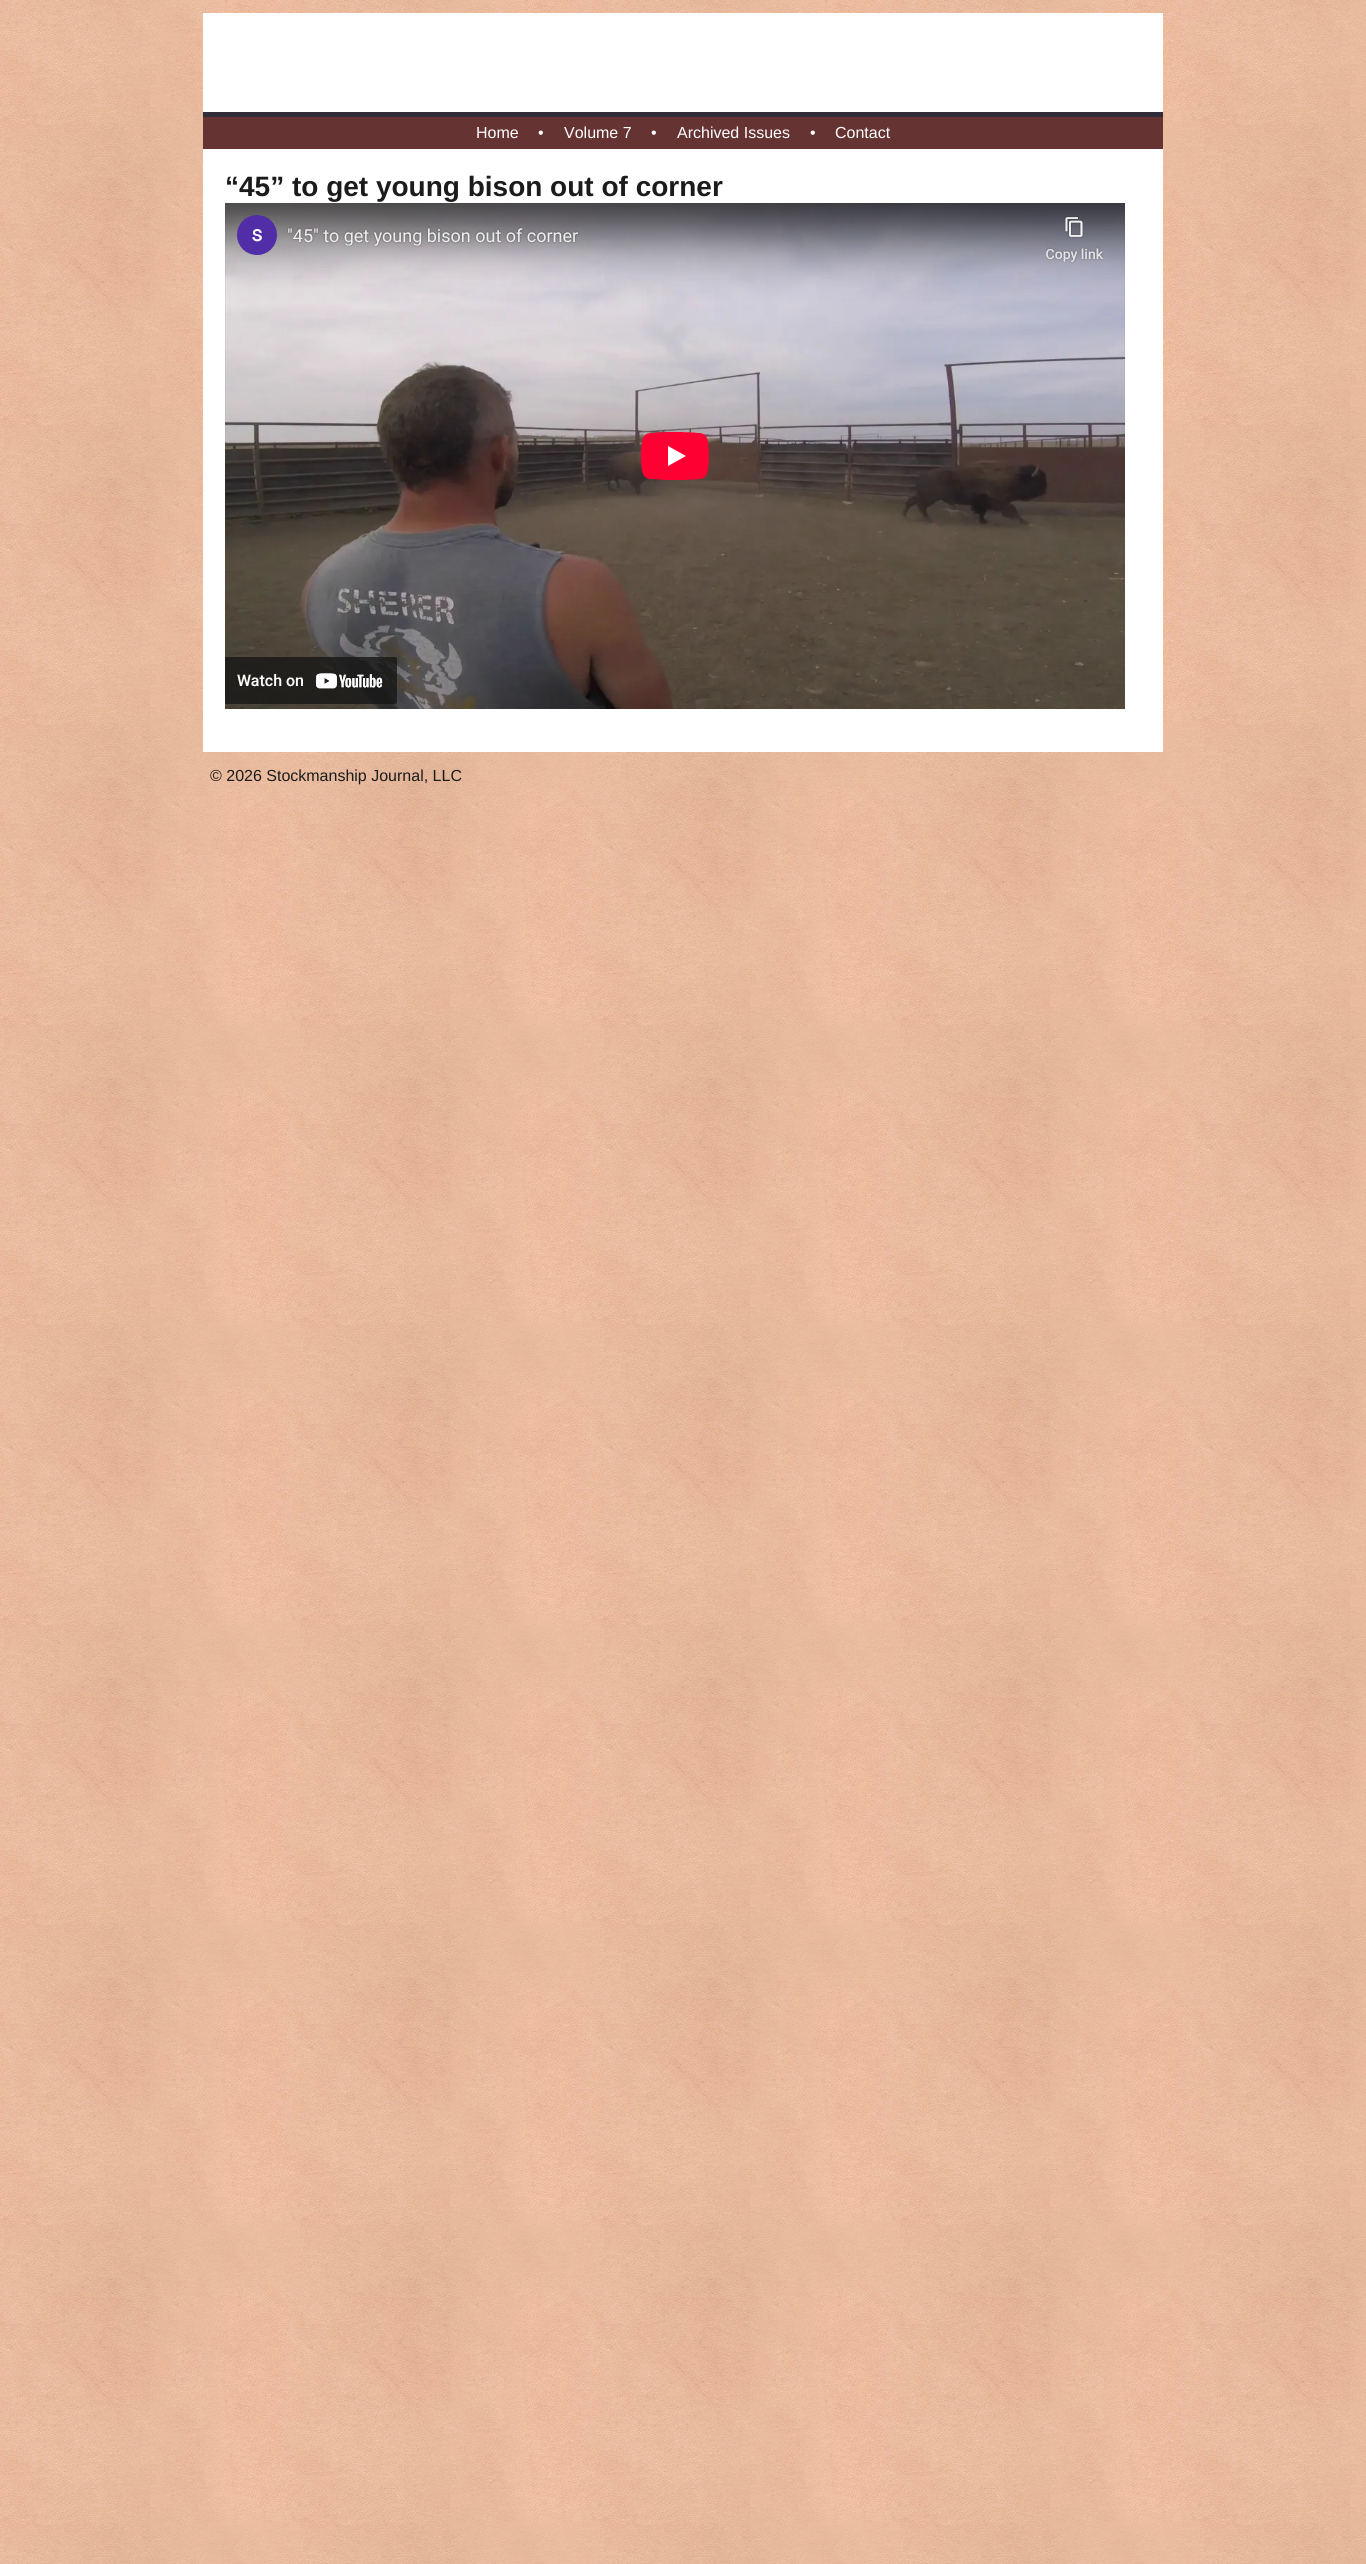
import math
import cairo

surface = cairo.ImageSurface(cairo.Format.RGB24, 1366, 2564)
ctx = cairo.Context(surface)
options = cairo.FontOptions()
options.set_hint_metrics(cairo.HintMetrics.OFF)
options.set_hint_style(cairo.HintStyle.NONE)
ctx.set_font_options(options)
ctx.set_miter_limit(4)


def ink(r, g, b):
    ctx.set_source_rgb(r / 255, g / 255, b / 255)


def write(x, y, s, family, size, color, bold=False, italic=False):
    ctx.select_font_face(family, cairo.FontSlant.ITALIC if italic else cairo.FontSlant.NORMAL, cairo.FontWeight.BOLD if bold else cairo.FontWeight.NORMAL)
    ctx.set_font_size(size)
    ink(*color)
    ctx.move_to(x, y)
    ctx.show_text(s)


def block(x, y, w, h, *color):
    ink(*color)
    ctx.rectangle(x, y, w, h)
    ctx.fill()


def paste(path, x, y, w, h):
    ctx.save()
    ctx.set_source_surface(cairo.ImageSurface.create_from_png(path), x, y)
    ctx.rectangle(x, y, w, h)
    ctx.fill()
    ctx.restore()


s1 = dict(family="Liberation Sans", size=16, color=(255, 255, 255))
s2 = dict(family="Liberation Sans", size=28, color=(27, 27, 27), bold=True)
s3 = dict(family="Liberation Sans", size=16, color=(27, 27, 27))

ink(255, 255, 255)
ctx.paint()
paste("pic1.png", 0, 0, 1366, 2564)
block(203, 13, 960, 99, 255, 255, 255)
block(203, 117, 960, 32, 102, 51, 51)
block(203, 112, 960, 5, 48, 44, 58)
write(476, 138, "Home", **s1)
write(538, 138, "•", **s1)
write(564, 138, "Volume 7", **s1)
write(651, 138, "•", **s1)
write(677, 138, "Archived Issues", **s1)
write(810, 138, "•", **s1)
write(835, 138, "Contact", **s1)
block(203, 149, 960, 603, 255, 255, 255)
write(225, 196, "“45” to get young bison out of corner", **s2)
paste("pic2.png", 225, 203, 900, 506)
write(210, 781, "© 2026 Stockmanship Journal, LLC", **s3)
surface.write_to_png("screenshot.png")
